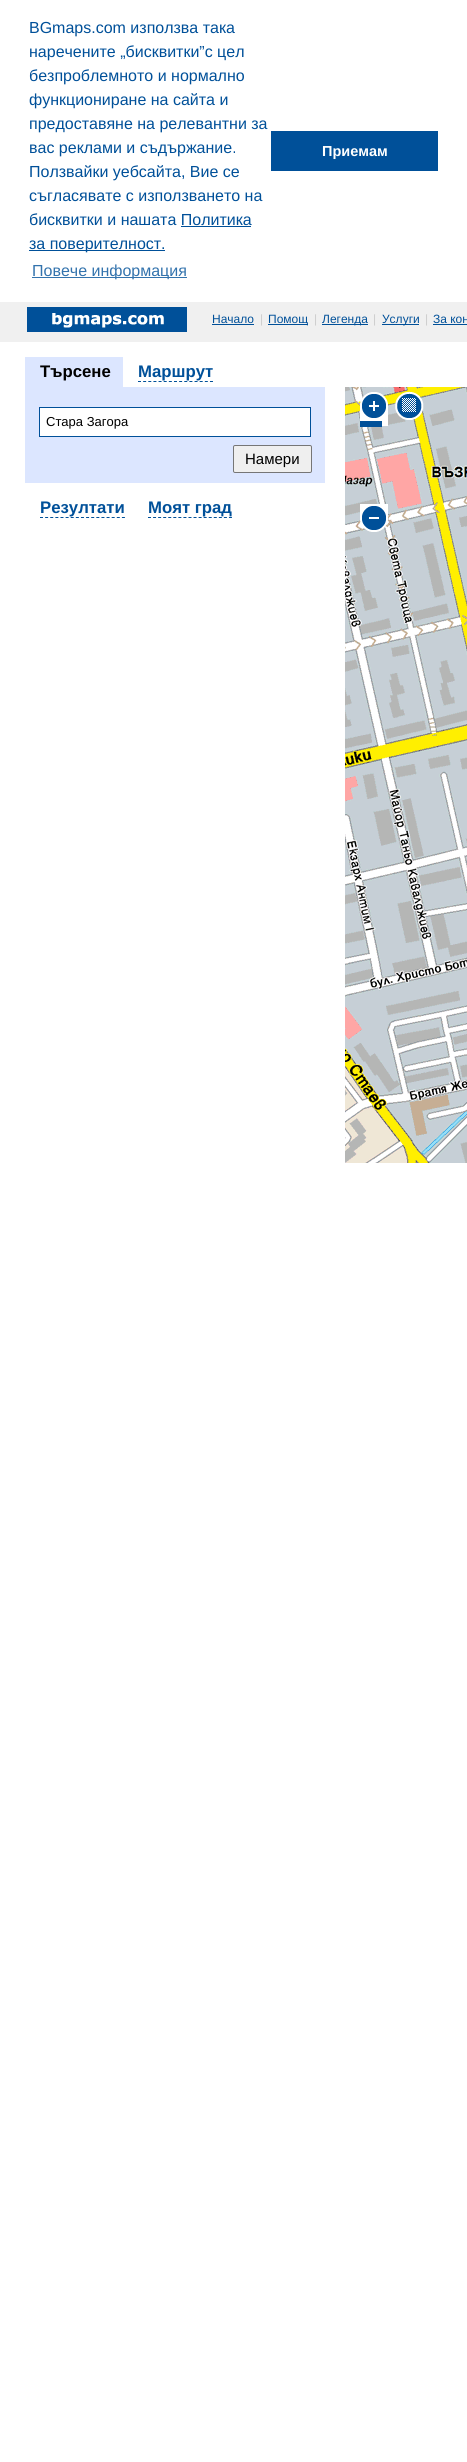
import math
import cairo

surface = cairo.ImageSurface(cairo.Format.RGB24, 467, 2462)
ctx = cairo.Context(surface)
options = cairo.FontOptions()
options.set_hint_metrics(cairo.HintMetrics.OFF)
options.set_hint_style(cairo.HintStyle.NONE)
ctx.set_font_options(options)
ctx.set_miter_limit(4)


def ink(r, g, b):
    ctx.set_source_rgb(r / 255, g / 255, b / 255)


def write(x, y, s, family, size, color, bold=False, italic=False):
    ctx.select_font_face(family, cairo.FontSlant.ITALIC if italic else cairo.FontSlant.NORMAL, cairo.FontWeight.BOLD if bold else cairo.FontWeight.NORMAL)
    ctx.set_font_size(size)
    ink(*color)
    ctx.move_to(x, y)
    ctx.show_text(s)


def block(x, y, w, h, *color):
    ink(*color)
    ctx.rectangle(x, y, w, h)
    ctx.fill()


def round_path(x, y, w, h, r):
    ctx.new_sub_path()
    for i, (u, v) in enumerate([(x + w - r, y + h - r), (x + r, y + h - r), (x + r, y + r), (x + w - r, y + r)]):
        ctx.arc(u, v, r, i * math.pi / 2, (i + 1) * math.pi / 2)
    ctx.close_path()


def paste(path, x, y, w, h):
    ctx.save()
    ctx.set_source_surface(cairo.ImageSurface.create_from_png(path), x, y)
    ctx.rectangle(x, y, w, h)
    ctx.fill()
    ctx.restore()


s1 = dict(family="Liberation Sans", size=16, color=(0, 80, 153))
s2 = dict(family="Liberation Sans", size=16, color=(51, 115, 173))
s3 = dict(family="Liberation Sans", size=14.5, color=(255, 255, 255), bold=True)
s4 = dict(family="Liberation Sans", size=12, color=(0, 80, 153))
s5 = dict(family="Liberation Sans", size=12, color=(204, 204, 204))
s6 = dict(family="Liberation Sans", size=16.75, color=(0, 0, 0), bold=True)
s7 = dict(family="Liberation Sans", size=16.75, color=(0, 80, 153), bold=True)
s8 = dict(family="Liberation Sans", size=13, color=(0, 0, 0))
s9 = dict(family="Liberation Sans", size=15, color=(0, 0, 0))

ink(255, 255, 255)
ctx.paint()
write(29, 33, "BGmaps.com използва така", **s1)
write(29, 57, "наречените „бисквитки”с цел", **s1)
write(29, 81, "безпроблемното и нормално", **s1)
write(29, 105, "функциониране на сайта и", **s1)
write(29, 129, "предоставяне на релевантни за", **s1)
write(29, 153, "вас реклами и съдържание.", **s1)
write(29, 177, "Ползвайки уебсайта, Вие се", **s1)
write(29, 201, "съгласявате с използването на", **s1)
write(29, 225, "бисквитки и нашата Политика", **s1)
block(29, 250, 136, 1, 0, 80, 153)
write(29, 249, "за поверителност.", **s1)
block(181, 226, 70, 1, 0, 80, 153)
block(32, 277, 155, 1, 51, 115, 173)
write(32, 276, "Повече информация", **s2)
block(271, 131, 167, 40, 0, 80, 153)
write(322, 156, "Приемам", **s3)
block(0, 302, 467, 40, 240, 240, 240)
paste("pic1.png", 27, 307, 160, 25)
write(212, 323, "Начало", **s4)
block(212, 324, 42, 1, 0, 80, 153)
write(260, 323, "|", **s5)
block(268, 324, 40, 1, 0, 80, 153)
write(268, 323, "Помощ", **s4)
write(314, 323, "|", **s5)
block(322, 324, 46, 1, 0, 80, 153)
write(322, 323, "Легенда", **s4)
write(373, 323, "|", **s5)
block(382, 324, 37, 1, 0, 80, 153)
write(382, 323, "Услуги", **s4)
write(425, 323, "|", **s5)
write(433, 323, "За кон", **s4)
block(433, 324, 34, 1, 0, 80, 153)
block(25, 357, 98, 30, 220, 230, 255)
write(40, 377, "Търсене", **s6)
write(138, 377, "Маршрут", **s7)
ctx.new_path()
ctx.move_to(138, 381.5)
ctx.line_to(213, 381.5)
ctx.set_line_width(1)
ctx.set_dash([3, 2.14])
ctx.stroke()
block(25, 387, 300, 96, 220, 230, 255)
ink(255, 255, 255)
ctx.rectangle(39.5, 407.5, 271, 29)
ctx.fill_preserve()
ink(0, 80, 153)
ctx.set_dash([])
ctx.stroke()
write(46, 426, "Стара Загора", **s8)
ink(239, 239, 239)
round_path(233.5, 445.5, 78, 27, 1.5)
ctx.fill_preserve()
ink(118, 118, 118)
ctx.stroke()
write(245, 464, "Намери", **s9)
write(40, 513, "Резултати", **s7)
ctx.new_path()
ctx.move_to(40, 517.5)
ctx.line_to(125, 517.5)
ctx.set_dash([3, 2.12])
ctx.stroke()
write(148, 513, "Моят град", **s7)
ctx.new_path()
ctx.move_to(148, 517.5)
ctx.line_to(232, 517.5)
ctx.set_dash([3, 2.06])
ctx.stroke()
paste("pic2.png", 345, 387, 37, 176)
paste("pic3.png", 382, 387, 85, 176)
paste("pic4.png", 345, 563, 37, 200)
paste("pic5.png", 382, 563, 85, 200)
paste("pic6.png", 345, 763, 37, 200)
paste("pic7.png", 382, 763, 85, 200)
paste("pic8.png", 345, 963, 37, 200)
paste("pic9.png", 382, 963, 85, 200)
paste("pic10.png", 360, 392, 28, 28)
paste("pic11.png", 360, 420, 28, 6)
block(360, 421, 22, 6, 0, 80, 153)
paste("pic12.png", 360, 504, 28, 28)
paste("pic13.png", 395, 391, 29, 29)
paste("pic14.png", 402, 398, 14, 14)
surface.write_to_png("screenshot.png")
